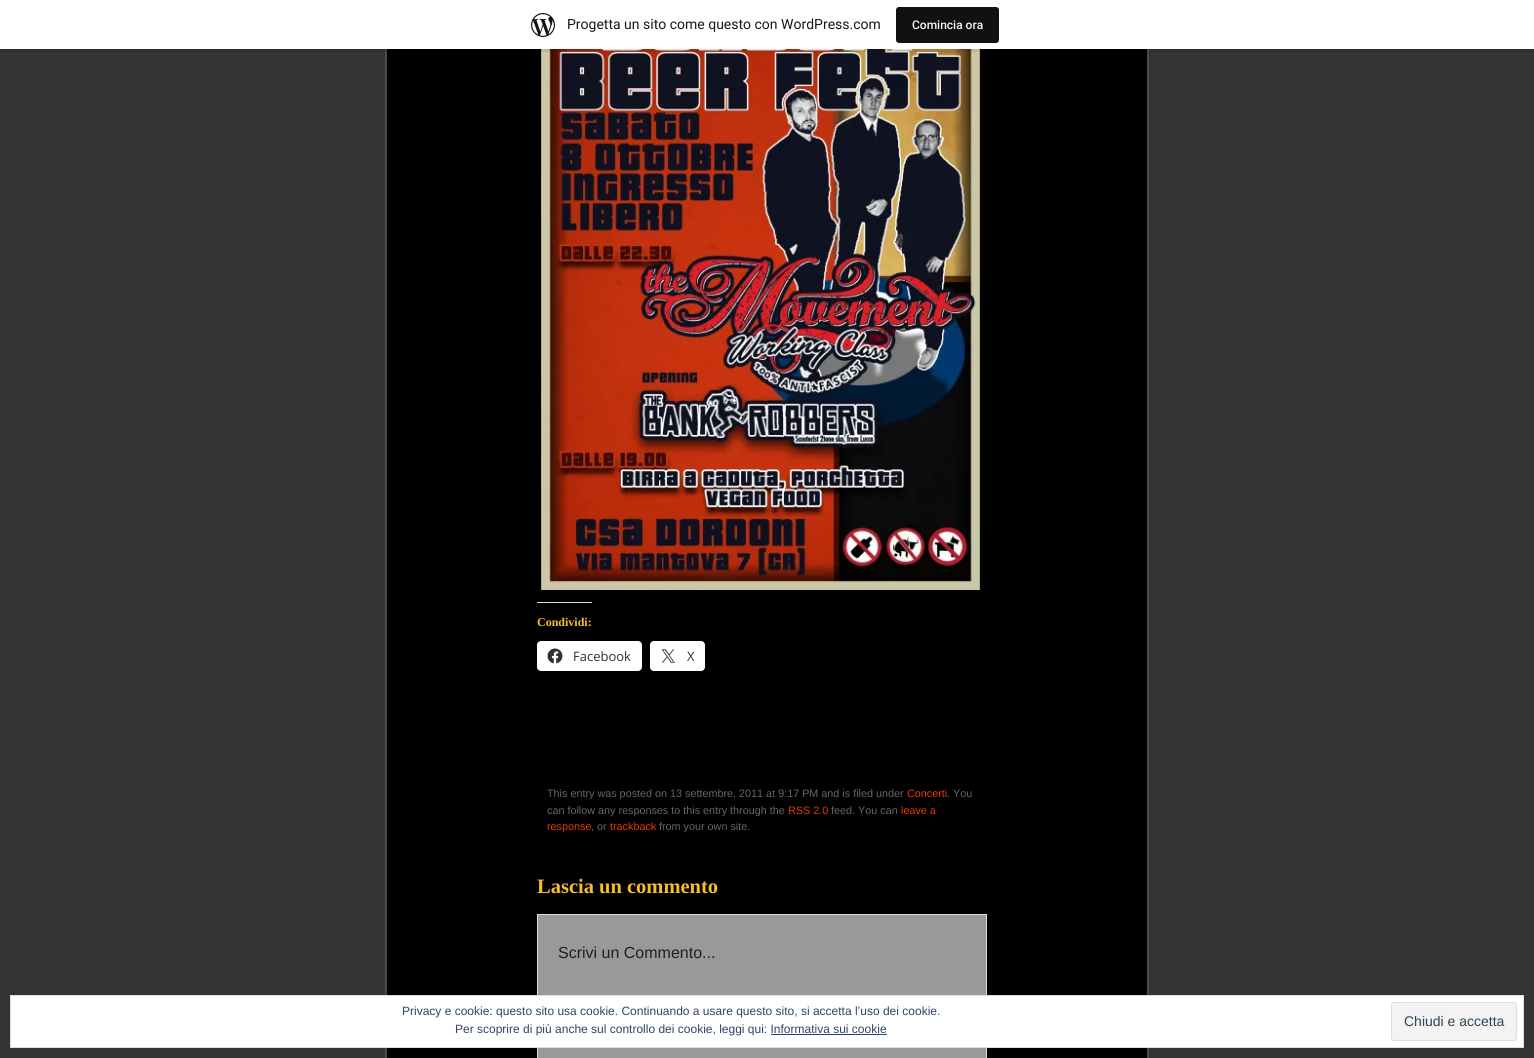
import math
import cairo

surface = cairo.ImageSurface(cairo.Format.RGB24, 1534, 1058)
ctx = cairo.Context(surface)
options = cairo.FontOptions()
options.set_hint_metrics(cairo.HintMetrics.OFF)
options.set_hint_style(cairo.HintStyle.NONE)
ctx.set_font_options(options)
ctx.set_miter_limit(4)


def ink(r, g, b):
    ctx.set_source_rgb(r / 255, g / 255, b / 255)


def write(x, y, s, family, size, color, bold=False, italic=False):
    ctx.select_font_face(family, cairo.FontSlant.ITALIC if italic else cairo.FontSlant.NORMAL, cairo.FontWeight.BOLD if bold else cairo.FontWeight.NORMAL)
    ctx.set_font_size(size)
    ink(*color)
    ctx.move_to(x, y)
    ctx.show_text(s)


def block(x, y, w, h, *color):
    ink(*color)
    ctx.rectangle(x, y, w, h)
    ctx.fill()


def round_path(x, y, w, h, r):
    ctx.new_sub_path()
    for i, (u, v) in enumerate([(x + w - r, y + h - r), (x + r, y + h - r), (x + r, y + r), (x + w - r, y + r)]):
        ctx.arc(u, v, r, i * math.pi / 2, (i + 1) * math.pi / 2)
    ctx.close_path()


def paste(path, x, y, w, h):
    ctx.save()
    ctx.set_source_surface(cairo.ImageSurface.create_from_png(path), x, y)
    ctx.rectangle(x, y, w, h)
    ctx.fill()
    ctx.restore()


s1 = dict(family="Roboto", size=14, color=(23, 23, 23))
s2 = dict(family="Roboto Medium", size=12, color=(246, 247, 247))
s3 = dict(family="Liberation Serif", size=12, color=(247, 189, 43), bold=True)
s4 = dict(family="Open Sans", size=13, color=(44, 51, 56))
s5 = dict(family="Liberation Sans", size=10.8, color=(102, 102, 102))
s6 = dict(family="Liberation Sans", size=10.8, color=(236, 57, 3))
s7 = dict(family="Liberation Serif", size=20.5, color=(247, 189, 43), bold=True)
s8 = dict(family="Liberation Sans", size=16, color=(31, 31, 31))
s9 = dict(family="Liberation Sans", size=12, color=(46, 68, 103))
s10 = dict(family="Liberation Sans", size=14, color=(46, 68, 83))

ink(51, 51, 51)
ctx.paint()
block(387, 49, 760, 1009, 0, 0, 0)
ctx.rectangle(386, -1, 762, 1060)
ink(75, 75, 75)
ctx.stroke()
paste("pic2.png", 541, 49, 439, 541)
ctx.set_source_rgba(0, 0, 0, 0.08)
ctx.new_path()
ctx.move_to(1, 49)
ctx.line_to(1, 52)
ctx.line_to(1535, 52)
ctx.line_to(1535, 3)
ctx.line_to(1534, 3)
ctx.line_to(1534, 49)
ctx.close_path()
ctx.fill()
block(0, 0, 1534, 49, 255, 255, 255)
paste("pic1.png", 531, 13, 24, 24)
write(567, 29, "Progetta un sito come questo con WordPress.com", **s1)
ink(17, 17, 17)
round_path(896, 7, 103, 36, 3)
ctx.fill()
write(912, 29, "Comincia ora", **s2)
block(537, 602, 55, 1, 220, 220, 222)
write(537, 626, "Condividi:", **s3)
ink(255, 255, 255)
round_path(537, 641, 105, 30, 4)
ctx.fill()
paste("pic3.png", 547, 648, 16, 16)
write(573, 661, "Facebook", **s4)
ink(255, 255, 255)
round_path(650, 641, 55, 30, 4)
ctx.fill()
paste("pic4.png", 661, 649, 14, 14)
write(687, 661, "X", **s4)
write(547, 797, "This entry was posted on 13 settembre, 2011 at 9:17 PM and is filed under", **s5)
write(907, 797, "Concerti", **s6)
write(947, 797, ". You", **s5)
write(547, 814, "can follow any responses to this entry through the", **s5)
write(788, 814, "RSS 2.0", **s6)
write(831, 814, "feed. You can", **s5)
write(901, 814, "leave a", **s6)
write(547, 830, "response", **s6)
write(591, 830, ", or", **s5)
write(610, 830, "trackback", **s6)
write(659, 830, "from your own site.", **s5)
write(537, 893, "Lascia un commento", **s7)
ink(153, 153, 153)
ctx.rectangle(537.5, 914.5, 449, 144)
ctx.fill_preserve()
ink(220, 220, 222)
ctx.set_line_width(1)
ctx.stroke()
write(558, 958, "Scrivi un Commento...", **s8)
ink(255, 255, 255)
ctx.rectangle(10.5, 995.5, 1513, 52)
ctx.fill_preserve()
ink(222, 222, 222)
ctx.stroke()
write(402, 1015, "Privacy e cookie: questo sito usa cookie. Continuando a usare questo sito, si accetta l’uso dei cookie.", **s9)
ink(243, 243, 243)
round_path(1391.5, 1002.5, 125, 38, 2.5)
ctx.fill_preserve()
ink(222, 222, 222)
ctx.stroke()
write(1404, 1026, "Chiudi e accetta", **s10)
write(455, 1033, "Per scoprire di più anche sul controllo dei cookie, leggi qui: Informativa sui cookie", **s9)
block(771, 1034, 116, 1, 46, 68, 103)
surface.write_to_png("screenshot.png")
